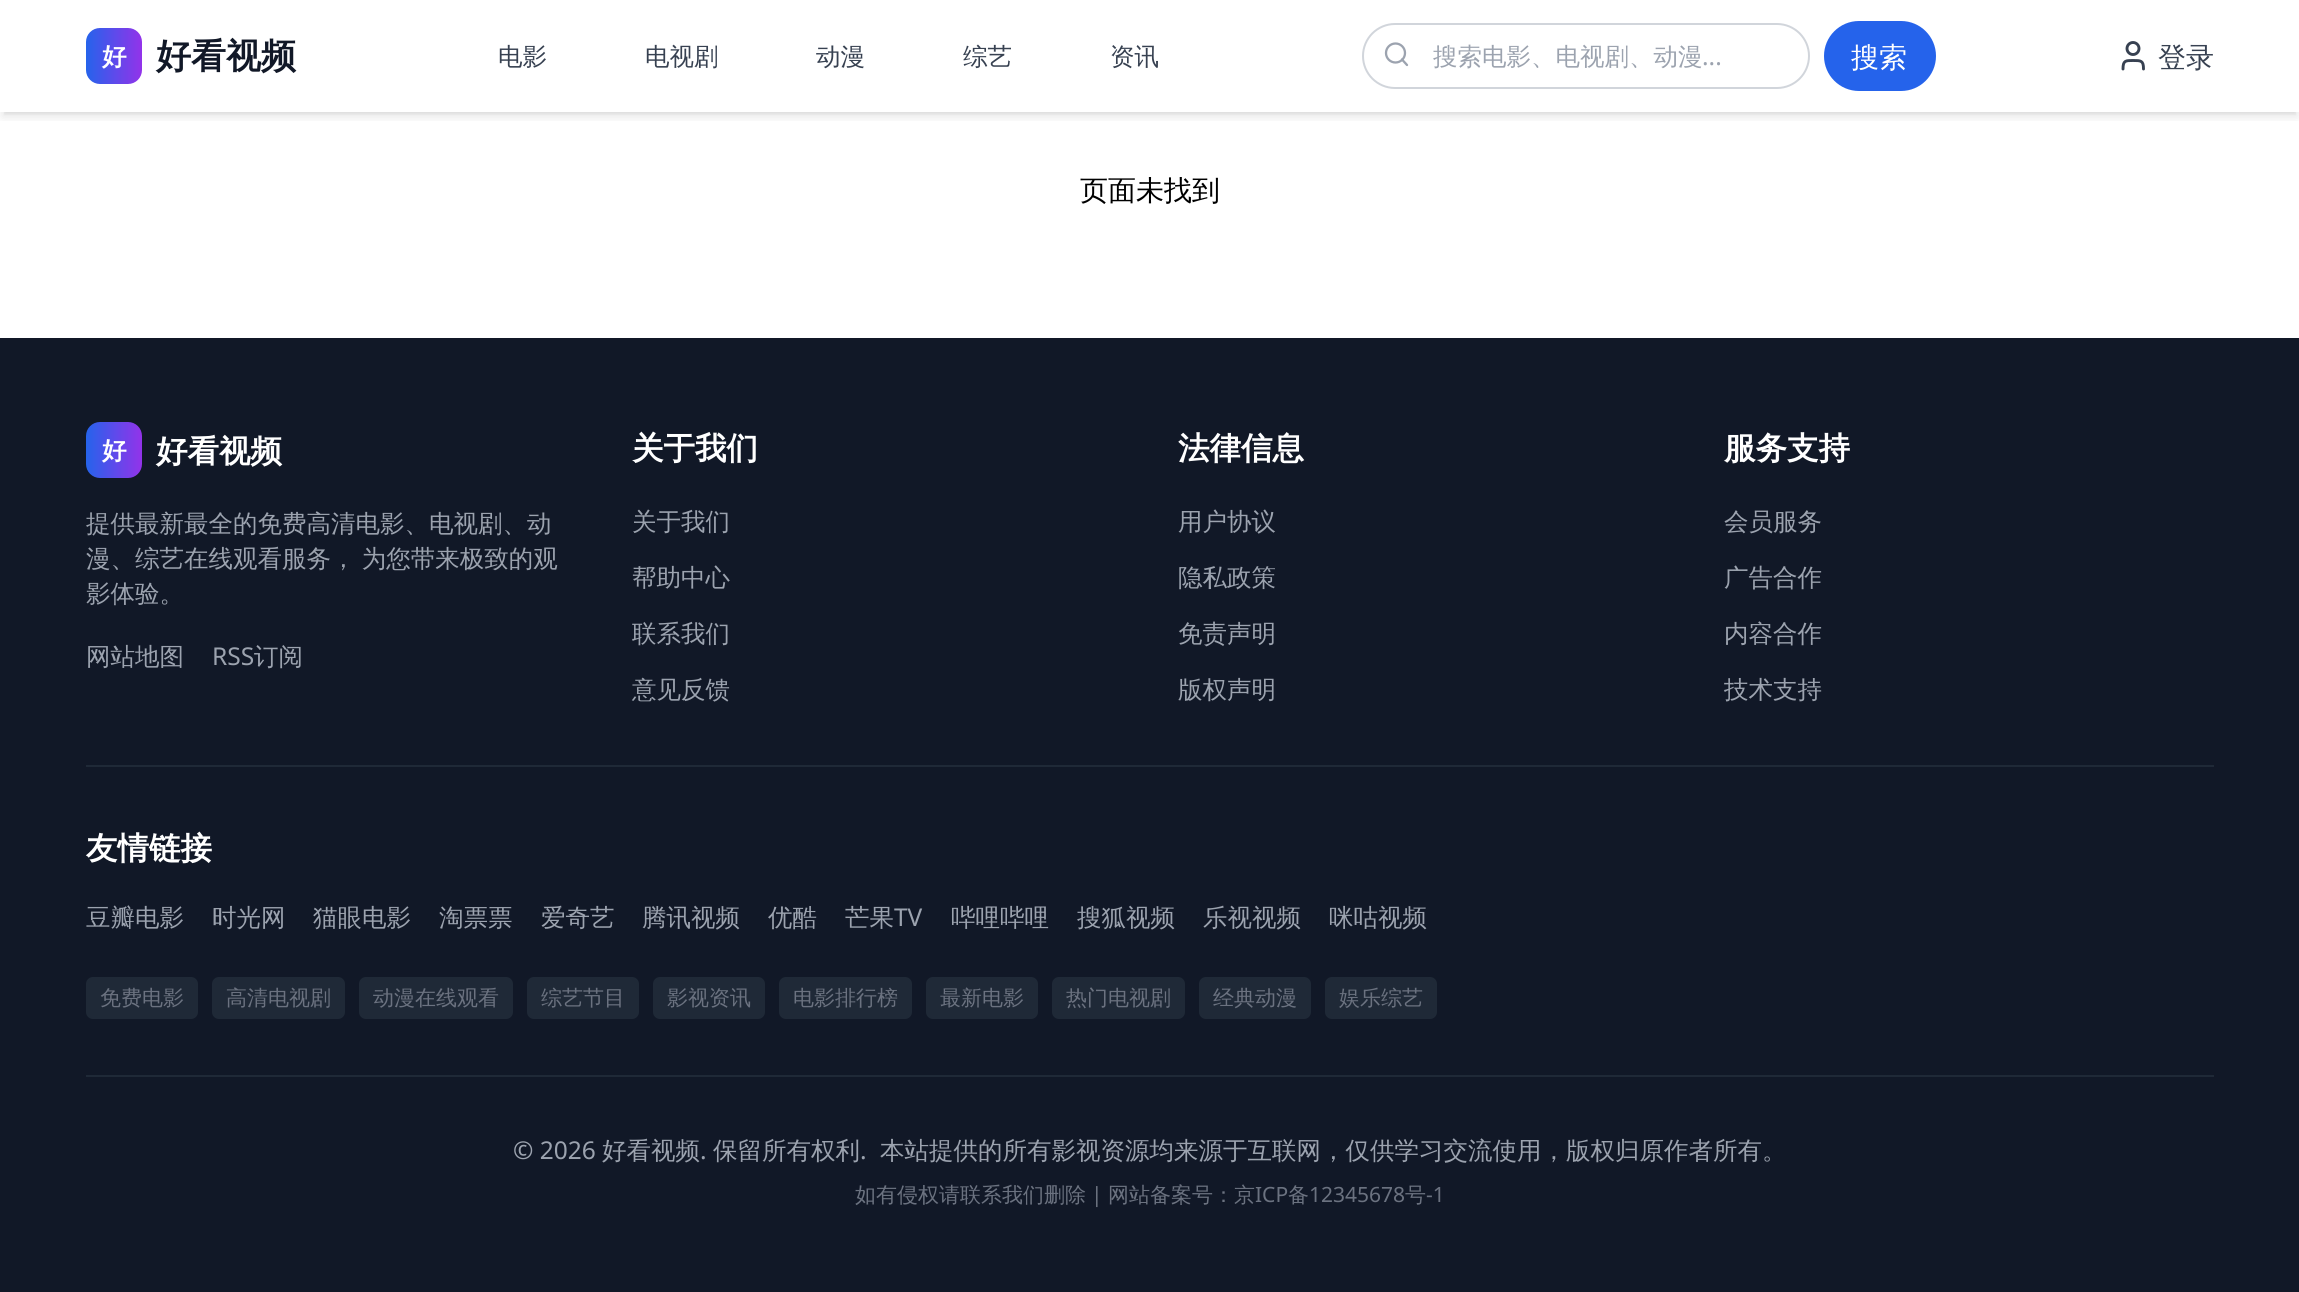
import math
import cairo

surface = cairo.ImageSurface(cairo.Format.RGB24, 2299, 1292)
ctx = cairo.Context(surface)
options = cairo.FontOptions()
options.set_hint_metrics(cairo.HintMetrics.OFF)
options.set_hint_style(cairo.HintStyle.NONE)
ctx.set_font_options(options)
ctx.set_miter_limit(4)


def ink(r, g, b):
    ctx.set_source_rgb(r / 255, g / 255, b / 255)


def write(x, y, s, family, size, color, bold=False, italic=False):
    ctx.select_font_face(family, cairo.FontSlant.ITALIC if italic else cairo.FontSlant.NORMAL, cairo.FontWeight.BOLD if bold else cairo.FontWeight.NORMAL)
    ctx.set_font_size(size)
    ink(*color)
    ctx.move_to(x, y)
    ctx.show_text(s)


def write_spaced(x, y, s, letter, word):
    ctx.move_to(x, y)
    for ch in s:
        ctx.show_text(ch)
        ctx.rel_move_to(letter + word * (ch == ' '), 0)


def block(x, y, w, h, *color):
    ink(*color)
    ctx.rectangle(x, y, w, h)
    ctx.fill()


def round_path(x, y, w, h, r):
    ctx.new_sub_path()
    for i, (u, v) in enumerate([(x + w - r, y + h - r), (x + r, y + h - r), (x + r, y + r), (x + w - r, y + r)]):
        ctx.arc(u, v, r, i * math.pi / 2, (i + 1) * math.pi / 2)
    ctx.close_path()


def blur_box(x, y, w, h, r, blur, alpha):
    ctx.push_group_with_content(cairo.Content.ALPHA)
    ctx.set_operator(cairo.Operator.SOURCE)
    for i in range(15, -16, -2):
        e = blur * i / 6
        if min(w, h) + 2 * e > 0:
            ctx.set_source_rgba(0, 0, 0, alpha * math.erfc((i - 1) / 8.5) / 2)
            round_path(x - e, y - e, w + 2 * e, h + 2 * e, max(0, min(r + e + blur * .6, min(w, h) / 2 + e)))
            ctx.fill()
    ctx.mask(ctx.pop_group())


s1 = dict(family="WenQuanYi Zen Hei", size=24.5, color=(255, 255, 255), bold=True)
s2 = dict(family="WenQuanYi Zen Hei", size=35, color=(17, 24, 39), bold=True)
s3 = dict(family="WenQuanYi Zen Hei Medium", size=24.5, color=(55, 65, 81))
s4 = dict(family="WenQuanYi Zen Hei Medium", size=24.5, color=(156, 163, 175))
s5 = dict(family="Noto Sans", size=24.5, color=(156, 163, 175))
s6 = dict(family="WenQuanYi Zen Hei Medium", size=28, color=(255, 255, 255))
s7 = dict(family="WenQuanYi Zen Hei Medium", size=28, color=(55, 65, 81))
s8 = dict(family="WenQuanYi Zen Hei Medium", size=28, color=(0, 0, 0))
s9 = dict(family="WenQuanYi Zen Hei", size=31.5, color=(255, 255, 255), bold=True)
s10 = dict(family="WenQuanYi Zen Hei Medium", size=21, color=(107, 114, 128))
s11 = dict(family="Noto Sans", size=21, color=(107, 114, 128))

ink(255, 255, 255)
ctx.paint()
ctx.save()
ctx.rectangle(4, 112, 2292, 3)
ctx.clip()
ink(0, 0, 0)
blur_box(4, 7, 2292, 105, 0, 3.5, 0.1)
ctx.restore()
ctx.save()
ctx.rectangle(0, 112, 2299, 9)
ctx.clip()
ink(0, 0, 0)
blur_box(2, 9, 2296, 108, 0, 5, 0.1)
ctx.restore()
gradient = cairo.LinearGradient(86, 56, 142, 56)
gradient.add_color_stop_rgba(0, 0.145, 0.388, 0.922, 1)
gradient.add_color_stop_rgba(1, 0.576, 0.2, 0.918, 1)
ctx.set_source(gradient)
round_path(86, 28, 56, 56, 14)
ctx.fill()
write(102, 65, "好", **s1)
write(156, 68, "好看视频", **s2)
write(498, 65, "电影", **s3)
write(645, 65, "电视剧", **s3)
write(816, 65, "动漫", **s3)
write(963, 65, "综艺", **s3)
write(1110, 65, "资讯", **s3)
round_path(1363, 24, 446, 64, 32)
ink(209, 213, 219)
ctx.stroke()
ctx.arc(1395.5, 53, 9.5, 0, 2 * math.pi)
ink(156, 163, 175)
ctx.set_line_width(2.3)
ctx.stroke()
ctx.new_path()
ctx.move_to(1407, 65)
ctx.line_to(1402, 59.5)
ctx.set_line_cap(cairo.LineCap.ROUND)
ctx.set_line_join(cairo.LineJoin.ROUND)
ctx.stroke()
write(1433, 65, "搜索电影、电视剧、动漫", **s4)
write(1702, 65, "...", **s5)
ink(37, 99, 235)
round_path(1824, 21, 112, 70, 35)
ctx.fill()
write(1851, 67, "搜索", **s6)
ctx.new_path()
ctx.move_to(2143.5, 69)
ctx.curve_to(2143.5, 60.5, 2141, 60.5, 2133, 60.5)
ctx.curve_to(2125.5, 60.5, 2123, 60.5, 2123, 69)
ink(55, 65, 81)
ctx.set_line_width(2.9)
ctx.stroke()
ctx.arc(2133, 48.5, 6, 0, 2 * math.pi)
ctx.set_line_cap(cairo.LineCap.BUTT)
ctx.set_line_join(cairo.LineJoin.MITER)
ctx.stroke()
write(2158, 67, "登录", **s7)
write(1080, 200, "页面未找到", **s8)
block(0, 338, 2299, 954, 17, 24, 39)
gradient = cairo.LinearGradient(86, 450, 142, 450)
gradient.add_color_stop_rgba(0, 0.145, 0.388, 0.922, 1)
gradient.add_color_stop_rgba(1, 0.576, 0.2, 0.918, 1)
ctx.set_source(gradient)
round_path(86, 422, 56, 56, 14)
ctx.fill()
write(102, 459, "好", **s1)
write(156, 462, "好看视频", **s9)
write(86, 532, "提供最新最全的免费高清电影、电视剧、动", **s4)
write_spaced(86, 567, "漫、综艺在线观看服务， 为您带来极致的观", 0, -1)
write(86, 602, "影体验。", **s4)
write(86, 665, "网站地图", **s4)
write(212, 665, "RSS", **s5)
write(254, 665, "订阅", **s4)
write(632, 459, "关于我们", **s9)
write(632, 530, "关于我们", **s4)
write(632, 586, "帮助中心", **s4)
write(632, 642, "联系我们", **s4)
write(632, 698, "意见反馈", **s4)
write(1178, 459, "法律信息", **s9)
write(1178, 530, "用户协议", **s4)
write(1178, 586, "隐私政策", **s4)
write(1178, 642, "免责声明", **s4)
write(1178, 698, "版权声明", **s4)
write(1724, 459, "服务支持", **s9)
write(1724, 530, "会员服务", **s4)
write(1724, 586, "广告合作", **s4)
write(1724, 642, "内容合作", **s4)
write(1724, 698, "技术支持", **s4)
block(86, 765, 2128, 2, 31, 41, 55)
write(86, 859, "友情链接", **s9)
write(86, 926, "豆瓣电影", **s4)
write(212, 926, "时光网", **s4)
write(313, 926, "猫眼电影", **s4)
write(439, 926, "淘票票", **s4)
write(541, 926, "爱奇艺", **s4)
write(642, 926, "腾讯视频", **s4)
write(768, 926, "优酷", **s4)
write(845, 926, "芒果", **s4)
write(894, 926, "TV", **s5)
write(951, 926, "哔哩哔哩", **s4)
write(1077, 926, "搜狐视频", **s4)
write(1203, 926, "乐视视频", **s4)
write(1329, 926, "咪咕视频", **s4)
ink(31, 41, 55)
round_path(86, 977, 112, 42, 7)
ctx.fill()
write(100, 1005, "免费电影", **s10)
ink(31, 41, 55)
round_path(212, 977, 133, 42, 7)
ctx.fill()
write(226, 1005, "高清电视剧", **s10)
ink(31, 41, 55)
round_path(359, 977, 154, 42, 7)
ctx.fill()
write(373, 1005, "动漫在线观看", **s10)
ink(31, 41, 55)
round_path(527, 977, 112, 42, 7)
ctx.fill()
write(541, 1005, "综艺节目", **s10)
ink(31, 41, 55)
round_path(653, 977, 112, 42, 7)
ctx.fill()
write(667, 1005, "影视资讯", **s10)
ink(31, 41, 55)
round_path(779, 977, 133, 42, 7)
ctx.fill()
write(793, 1005, "电影排行榜", **s10)
ink(31, 41, 55)
round_path(926, 977, 112, 42, 7)
ctx.fill()
write(940, 1005, "最新电影", **s10)
ink(31, 41, 55)
round_path(1052, 977, 133, 42, 7)
ctx.fill()
write(1066, 1005, "热门电视剧", **s10)
ink(31, 41, 55)
round_path(1199, 977, 112, 42, 7)
ctx.fill()
write(1213, 1005, "经典动漫", **s10)
ink(31, 41, 55)
round_path(1325, 977, 112, 42, 7)
ctx.fill()
write(1339, 1005, "娱乐综艺", **s10)
block(86, 1075, 2128, 2, 31, 41, 55)
write(513, 1159, "© 2026", **s5)
write(602, 1159, "好看视频", **s4)
write(700, 1159, ".", **s5)
write(713, 1159, "保留所有权利", **s4)
write(860, 1159, ".", **s5)
write(880, 1159, "本站提供的所有影视资源均来源于互联网，仅供学习交流使用，版权归原作者所有。", **s4)
write(855, 1202, "如有侵权请联系我们删除", **s10)
write(1091, 1202, "|", **s11)
write(1108, 1202, "网站备案号：京", **s10)
write(1255, 1202, "ICP", **s11)
write(1288, 1202, "备", **s10)
write(1309, 1202, "12345678", **s11)
write(1405, 1202, "号", **s10)
write(1426, 1202, "-1", **s11)
surface.write_to_png("screenshot.png")
